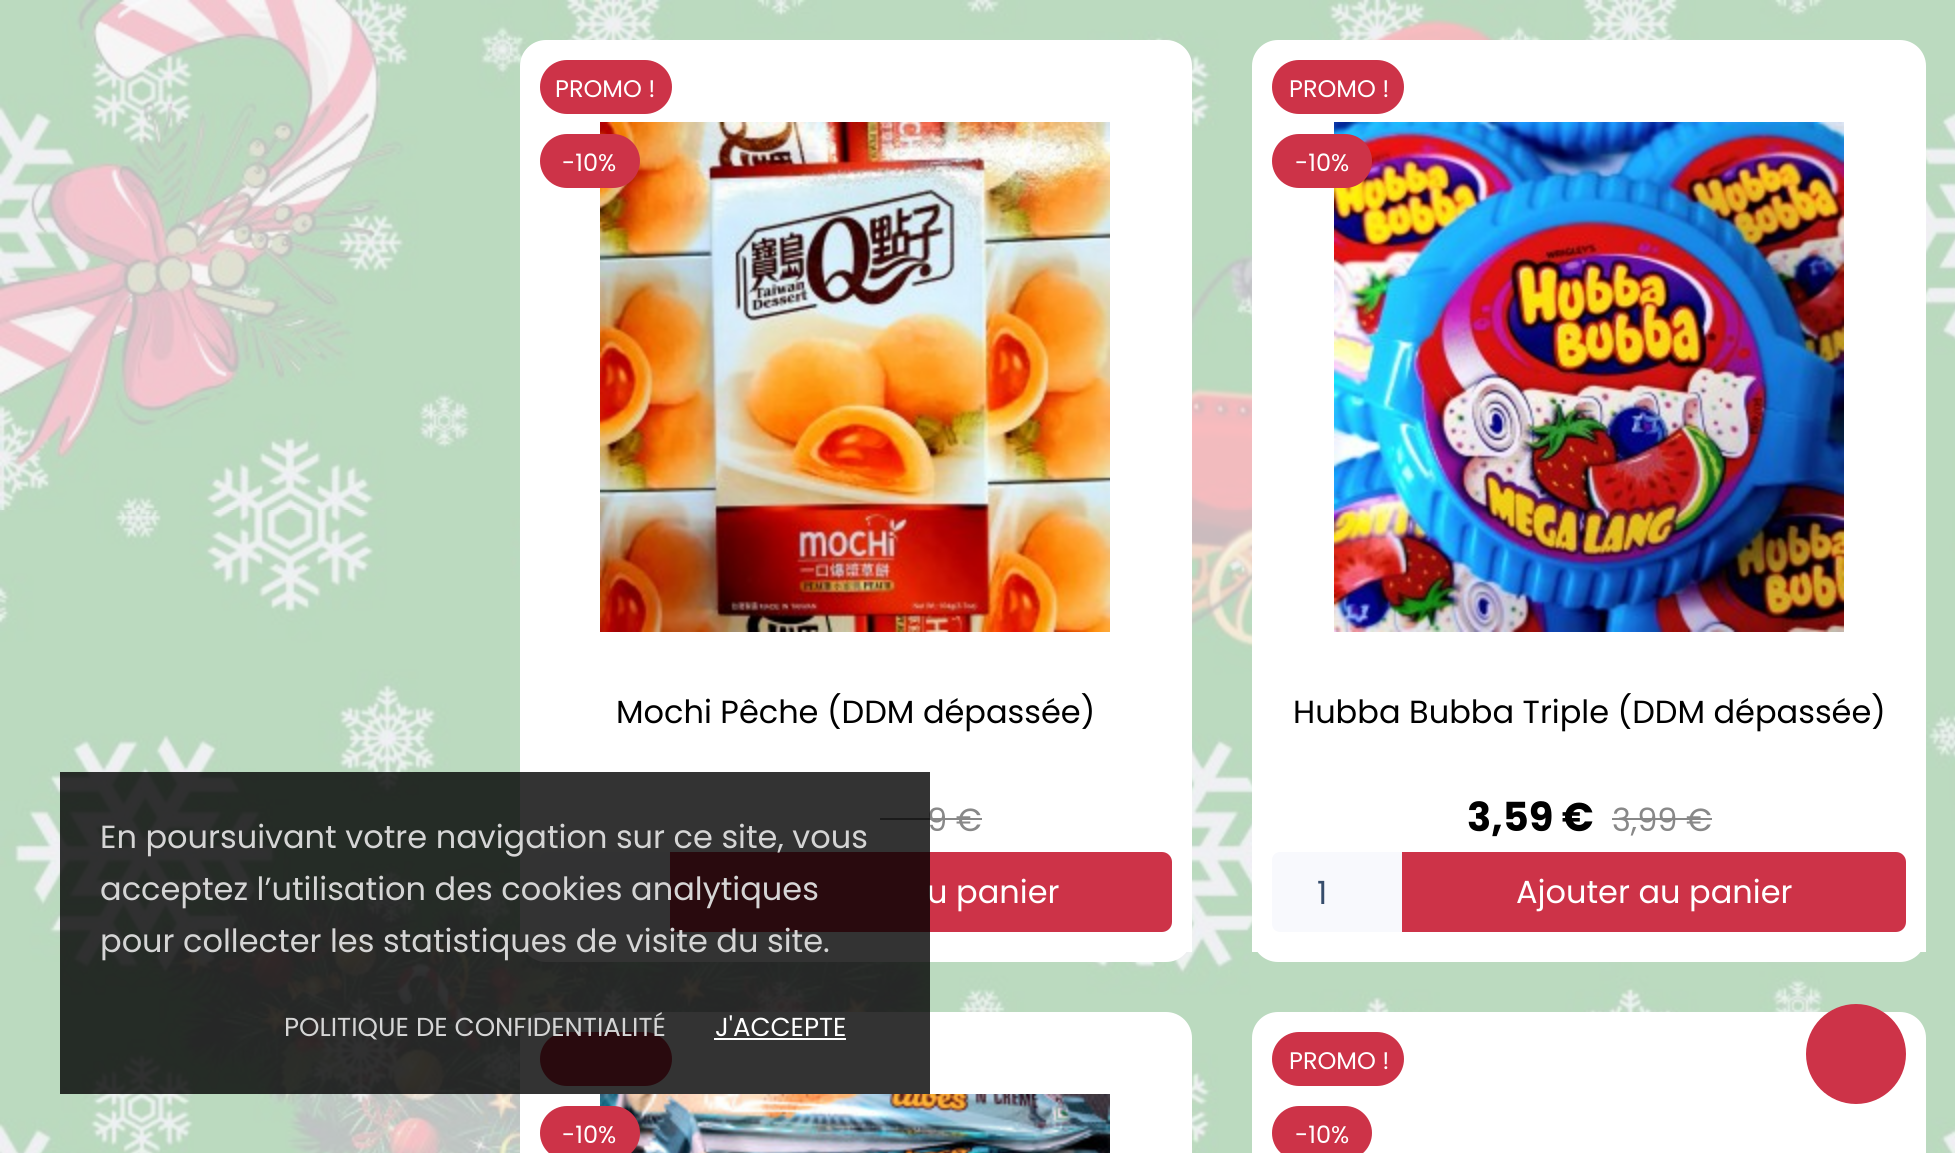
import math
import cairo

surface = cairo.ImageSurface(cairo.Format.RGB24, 1955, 1153)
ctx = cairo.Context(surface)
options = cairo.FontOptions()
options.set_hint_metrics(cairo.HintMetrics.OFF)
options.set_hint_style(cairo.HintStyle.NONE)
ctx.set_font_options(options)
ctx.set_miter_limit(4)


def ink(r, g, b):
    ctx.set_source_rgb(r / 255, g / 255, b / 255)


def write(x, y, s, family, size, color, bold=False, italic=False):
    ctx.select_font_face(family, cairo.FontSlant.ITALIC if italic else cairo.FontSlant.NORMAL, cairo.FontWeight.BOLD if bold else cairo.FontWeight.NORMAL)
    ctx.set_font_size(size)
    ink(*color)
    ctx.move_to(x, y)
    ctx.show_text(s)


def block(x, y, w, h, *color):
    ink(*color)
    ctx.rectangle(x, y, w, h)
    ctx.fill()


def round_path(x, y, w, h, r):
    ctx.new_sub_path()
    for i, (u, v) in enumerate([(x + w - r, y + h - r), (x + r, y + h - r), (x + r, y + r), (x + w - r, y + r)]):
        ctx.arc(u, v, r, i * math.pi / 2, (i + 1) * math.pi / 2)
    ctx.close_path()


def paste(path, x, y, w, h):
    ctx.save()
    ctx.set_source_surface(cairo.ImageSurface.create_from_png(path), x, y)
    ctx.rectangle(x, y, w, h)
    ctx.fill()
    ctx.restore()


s1 = dict(family="Poppins", size=32, color=(136, 136, 136))
s2 = dict(family="Poppins", size=32, color=(255, 255, 255))
s3 = dict(family="Poppins", size=32, color=(213, 213, 213))
s4 = dict(family="Poppins", size=26, color=(213, 213, 213))
s5 = dict(family="Poppins", size=26, color=(255, 255, 255))
s6 = dict(family="Poppins", size=24, color=(255, 255, 255))
s7 = dict(family="Poppins", size=32, color=(0, 0, 0))
s8 = dict(family="Poppins", size=40, color=(0, 0, 0), bold=True)
s9 = dict(family="Poppins", size=32, color=(54, 77, 108))

ink(255, 255, 255)
ctx.paint()
paste("pic1.png", 0, 0, 1955, 1153)
ink(255, 255, 255)
round_path(520, 40, 672, 922, 26)
ctx.fill()
block(520, 937, 672, 15, 255, 255, 255)
write(927, 831, "9 €", **s1)
block(880, 818, 102, 2, 136, 136, 136)
ink(248, 249, 253)
ctx.new_path()
ctx.move_to(548, 852)
ctx.line_to(670, 852)
ctx.line_to(670, 932)
ctx.line_to(548, 932)
ctx.curve_to(543.5, 932, 540, 928.5, 540, 924)
ctx.line_to(540, 860)
ctx.curve_to(540, 855.5, 543.5, 852, 548, 852)
ctx.close_path()
ctx.fill()
ink(205, 51, 72)
ctx.new_path()
ctx.move_to(670, 852)
ctx.line_to(1162, 852)
ctx.curve_to(1167.5, 852, 1172, 856.5, 1172, 862)
ctx.line_to(1172, 922)
ctx.curve_to(1172, 927.5, 1167.5, 932, 1162, 932)
ctx.line_to(670, 932)
ctx.close_path()
ctx.fill()
write(927, 903, "u panier", **s2)
round_path(520, 1012, 672, 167, 26)
ctx.fill()
ink(205, 51, 72)
round_path(541, 1033, 130, 52, 26)
ctx.fill_preserve()
ctx.stroke()
ctx.set_source_rgba(0, 0, 0, 0.8)
ctx.rectangle(60, 772, 870, 322)
ctx.fill()
write(100, 848, "En poursuivant votre navigation sur ce site, vous", **s3)
write(100, 900, "acceptez l’utilisation des cookies analytiques", **s3)
write(100, 952, "pour collecter les statistiques de visite du site.", **s3)
write(284, 1036, "POLITIQUE DE CONFIDENTIALITÉ", **s4)
write(715, 1036, "J'ACCEPTE", **s5)
block(714, 1038, 132, 2, 255, 255, 255)
ink(205, 51, 72)
round_path(541, 61, 130, 52, 26)
ctx.fill_preserve()
ctx.stroke()
write(555, 97, "PROMO !", **s6)
paste("pic2.png", 600, 122, 510, 510)
ink(205, 51, 72)
round_path(541, 135, 98, 52, 26)
ctx.fill_preserve()
ctx.stroke()
write(562, 171, "-10%", **s6)
write(616, 723, "Mochi Pêche (DDM dépassée)", **s7)
ink(255, 255, 255)
round_path(1252, 40, 674, 922, 26)
ctx.fill()
ink(205, 51, 72)
round_path(1273, 61, 130, 52, 26)
ctx.fill_preserve()
ctx.stroke()
write(1289, 97, "PROMO !", **s6)
paste("pic3.png", 1334, 122, 510, 510)
ink(205, 51, 72)
round_path(1273, 135, 98, 52, 26)
ctx.fill_preserve()
ctx.stroke()
write(1295, 171, "-10%", **s6)
block(1252, 937, 674, 15, 255, 255, 255)
write(1293, 723, "Hubba Bubba Triple (DDM dépassée)", **s7)
write(1467, 831, "3,59 €", **s8)
write(1612, 831, "3,99 €", **s1)
block(1612, 818, 100, 2, 136, 136, 136)
ink(248, 249, 253)
ctx.new_path()
ctx.move_to(1280, 852)
ctx.line_to(1402, 852)
ctx.line_to(1402, 932)
ctx.line_to(1280, 932)
ctx.curve_to(1275.5, 932, 1272, 928.5, 1272, 924)
ctx.line_to(1272, 860)
ctx.curve_to(1272, 855.5, 1275.5, 852, 1280, 852)
ctx.close_path()
ctx.fill()
write(1317, 904, "1", **s9)
ink(205, 51, 72)
ctx.new_path()
ctx.move_to(1402, 852)
ctx.line_to(1896, 852)
ctx.curve_to(1901.5, 852, 1906, 856.5, 1906, 862)
ctx.line_to(1906, 922)
ctx.curve_to(1906, 927.5, 1901.5, 932, 1896, 932)
ctx.line_to(1402, 932)
ctx.close_path()
ctx.fill()
write(1516, 903, "Ajouter au panier", **s2)
paste("pic4.png", 600, 1094, 510, 59)
ink(205, 51, 72)
round_path(541, 1107, 98, 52, 26)
ctx.fill_preserve()
ctx.stroke()
write(562, 1143, "-10%", **s6)
round_path(1252, 1012, 674, 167, 26)
ctx.fill()
ink(205, 51, 72)
round_path(1273, 1033, 130, 52, 26)
ctx.fill_preserve()
ctx.stroke()
write(1289, 1069, "PROMO !", **s6)
ink(205, 51, 72)
round_path(1273, 1107, 98, 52, 26)
ctx.fill_preserve()
ctx.stroke()
write(1295, 1143, "-10%", **s6)
ink(205, 51, 72)
ctx.new_path()
ctx.arc(1856, 1054, 50, 0, 2 * math.pi)
ctx.fill()
surface.write_to_png("screenshot.png")
